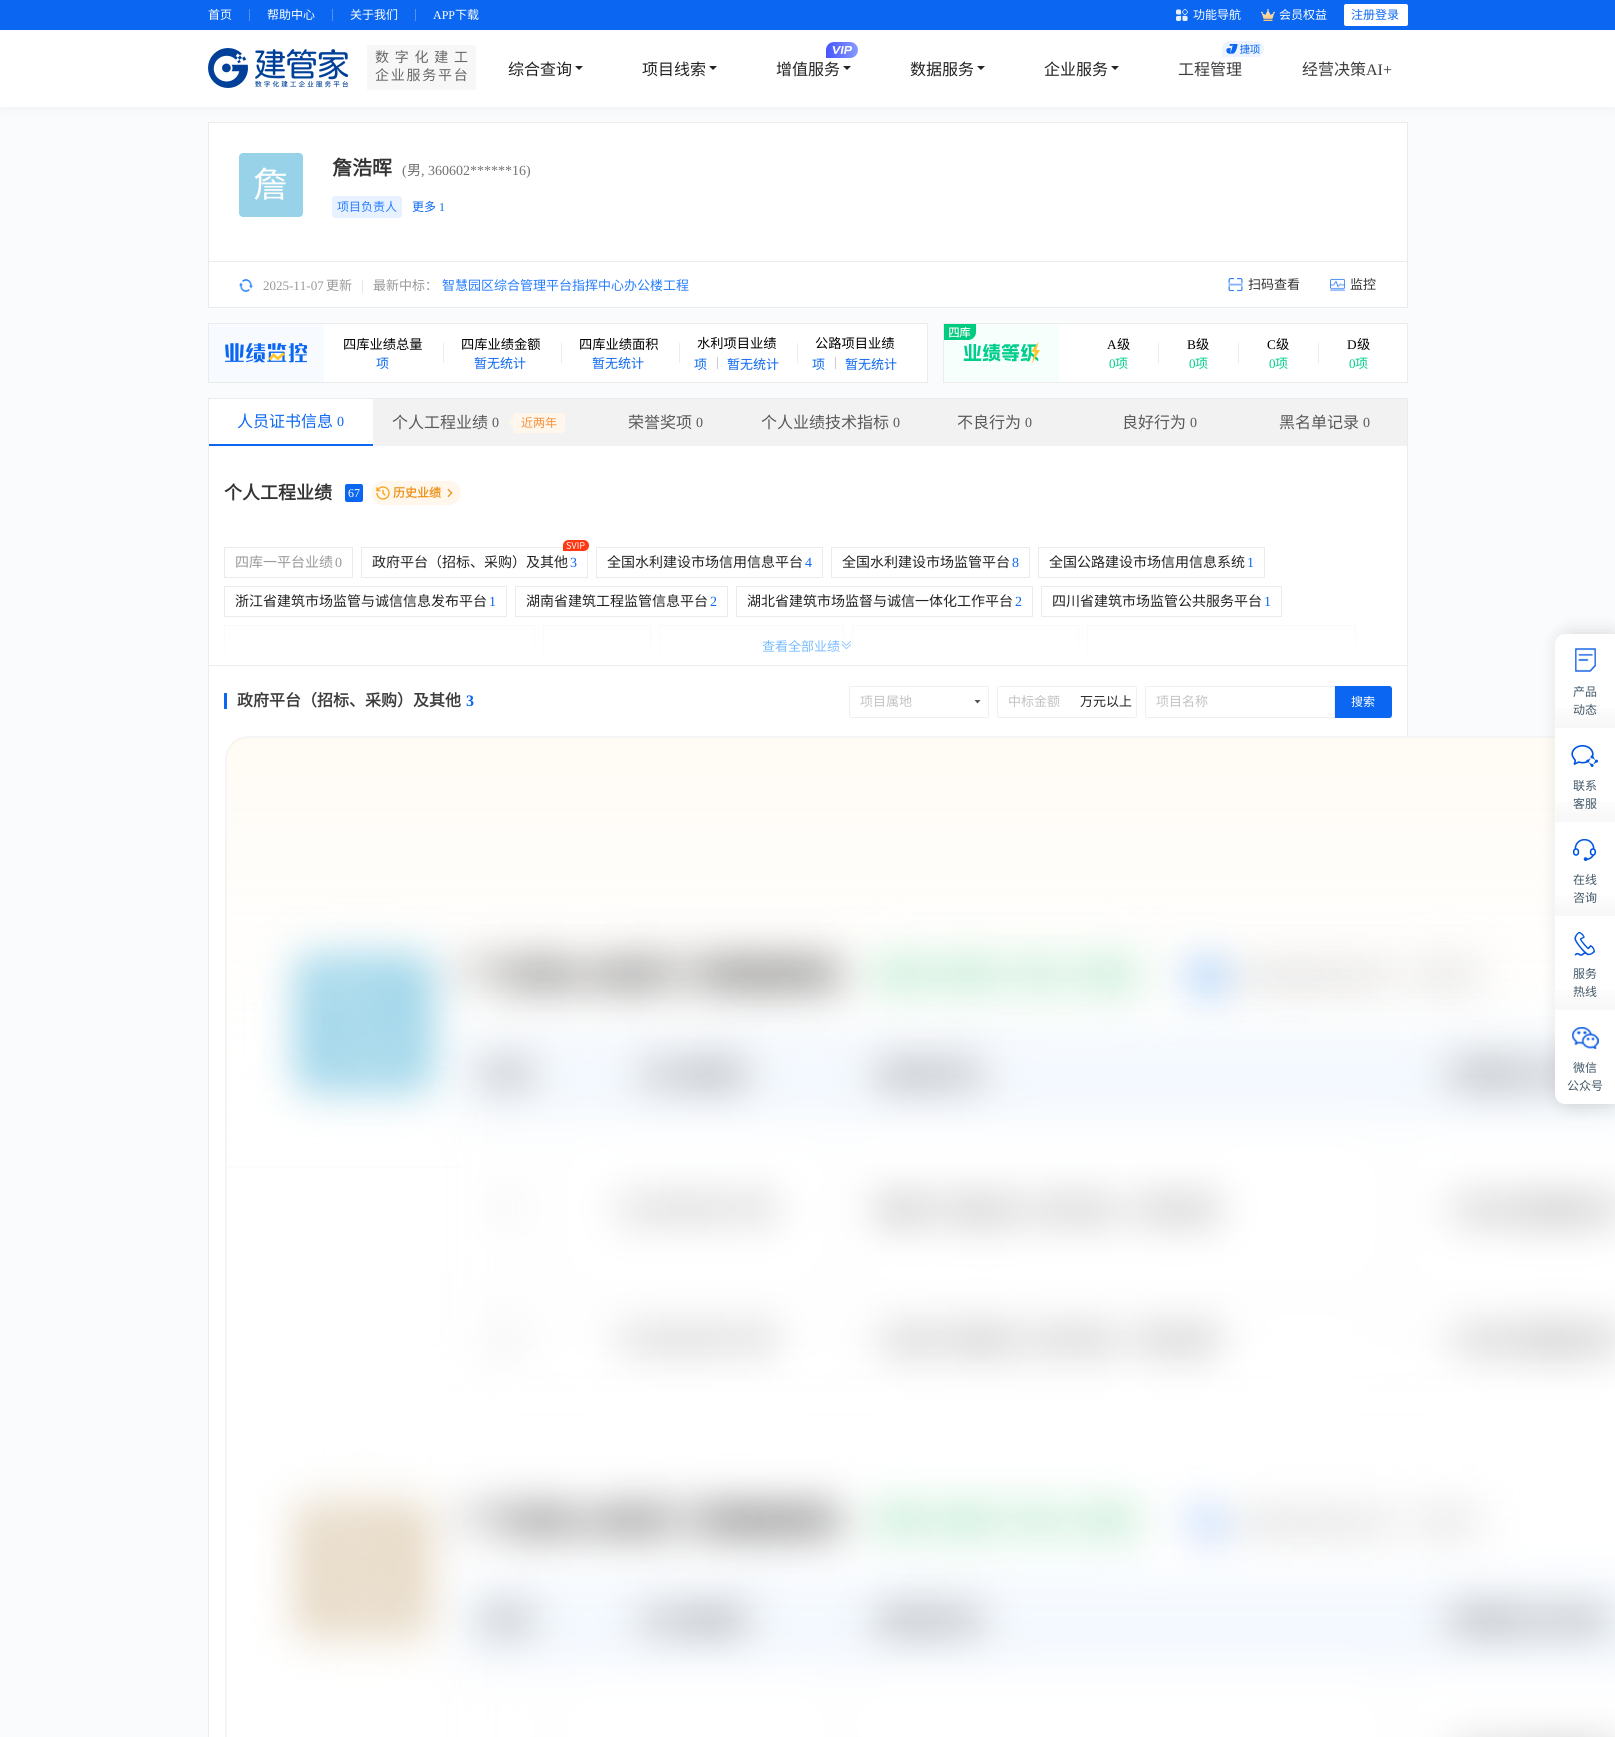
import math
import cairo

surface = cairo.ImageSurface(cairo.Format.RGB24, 1615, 1737)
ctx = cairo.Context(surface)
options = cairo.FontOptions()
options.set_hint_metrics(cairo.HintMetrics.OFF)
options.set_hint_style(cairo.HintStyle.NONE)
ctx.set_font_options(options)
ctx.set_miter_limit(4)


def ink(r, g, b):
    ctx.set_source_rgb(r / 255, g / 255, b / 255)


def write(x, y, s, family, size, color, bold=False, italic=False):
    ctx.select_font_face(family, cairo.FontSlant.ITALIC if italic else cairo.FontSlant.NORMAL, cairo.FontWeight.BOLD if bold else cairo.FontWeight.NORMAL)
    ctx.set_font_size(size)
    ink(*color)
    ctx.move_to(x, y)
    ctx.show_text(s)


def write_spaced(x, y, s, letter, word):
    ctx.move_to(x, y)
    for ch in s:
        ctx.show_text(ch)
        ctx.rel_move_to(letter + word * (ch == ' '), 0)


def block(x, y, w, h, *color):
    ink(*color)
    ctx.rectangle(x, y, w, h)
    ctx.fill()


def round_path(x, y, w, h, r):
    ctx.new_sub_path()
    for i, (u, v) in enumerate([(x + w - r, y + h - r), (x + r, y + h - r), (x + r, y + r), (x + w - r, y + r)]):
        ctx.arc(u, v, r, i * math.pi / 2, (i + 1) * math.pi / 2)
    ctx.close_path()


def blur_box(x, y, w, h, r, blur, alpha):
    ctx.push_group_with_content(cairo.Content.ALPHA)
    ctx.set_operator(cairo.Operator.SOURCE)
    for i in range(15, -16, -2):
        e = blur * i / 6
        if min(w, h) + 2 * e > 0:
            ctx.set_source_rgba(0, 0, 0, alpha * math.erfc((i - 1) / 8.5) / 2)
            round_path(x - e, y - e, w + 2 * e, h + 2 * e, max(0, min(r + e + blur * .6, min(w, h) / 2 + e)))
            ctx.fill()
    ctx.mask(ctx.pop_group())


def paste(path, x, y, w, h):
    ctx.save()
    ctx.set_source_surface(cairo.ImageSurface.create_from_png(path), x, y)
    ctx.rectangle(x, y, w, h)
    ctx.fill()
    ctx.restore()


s1 = dict(family="Noto Sans CJK SC", size=12, color=(255, 255, 255))
s2 = dict(family="Liberation Serif", size=12, color=(255, 255, 255))
s3 = dict(family="Noto Sans CJK SC", size=12, color=(11, 103, 241))
s4 = dict(family="Noto Sans CJK SC", size=16, color=(34, 34, 34))
s5 = dict(family="Noto Sans CJK SC", size=16, color=(61, 61, 61))
s6 = dict(family="Liberation Serif", size=16, color=(61, 61, 61))
s7 = dict(family="Noto Sans CJK SC", size=35, color=(255, 255, 255))
s8 = dict(family="Noto Sans CJK SC", size=20, color=(51, 51, 51), bold=True)
s9 = dict(family="Liberation Serif", size=14, color=(115, 115, 115))
s10 = dict(family="Noto Sans CJK SC", size=14, color=(115, 115, 115))
s11 = dict(family="Noto Sans CJK SC", size=12, color=(38, 125, 255))
s12 = dict(family="Liberation Serif", size=12, color=(11, 103, 241))
s13 = dict(family="Liberation Serif", size=13, color=(153, 153, 153))
s14 = dict(family="Noto Sans CJK SC", size=13, color=(153, 153, 153))
s15 = dict(family="Noto Sans CJK SC", size=13, color=(38, 125, 255))
s16 = dict(family="Noto Sans CJK SC", size=13, color=(51, 51, 51))
s17 = dict(family="Noto Sans CJK SC", size=13.25, color=(0, 0, 0))
s18 = dict(family="Noto Sans CJK SC", size=13, color=(11, 103, 241))
s19 = dict(family="Liberation Serif", size=13.25, color=(0, 0, 0))
s20 = dict(family="Liberation Serif", size=13, color=(0, 206, 140))
s21 = dict(family="Noto Sans CJK SC", size=13, color=(0, 206, 140))
s22 = dict(family="Noto Sans CJK SC", size=16, color=(11, 103, 241))
s23 = dict(family="Liberation Serif", size=14, color=(11, 103, 241))
s24 = dict(family="Noto Sans CJK SC", size=16, color=(89, 89, 89))
s25 = dict(family="Liberation Serif", size=14, color=(89, 89, 89))
s26 = dict(family="Noto Sans CJK SC", size=12, color=(244, 142, 60))
s27 = dict(family="Noto Sans CJK SC", size=18, color=(51, 51, 51), bold=True)
s28 = dict(family="Noto Sans CJK SC", size=12, color=(238, 146, 25), bold=True)
s29 = dict(family="Noto Sans CJK SC", size=14, color=(153, 153, 153))
s30 = dict(family="Liberation Serif", size=14, color=(153, 153, 153))
s31 = dict(family="Noto Sans CJK SC", size=14, color=(34, 34, 34))
s32 = dict(family="Noto Sans CJK SC", size=13, color=(122, 189, 255))
s33 = dict(family="Noto Sans CJK SC", size=16, color=(61, 61, 61), bold=True)
s34 = dict(family="Liberation Serif", size=16, color=(11, 103, 241), bold=True)
s35 = dict(family="Noto Sans CJK SC", size=13, color=(194, 194, 194))
s36 = dict(family="Noto Sans CJK SC", size=13, color=(34, 34, 34))
s37 = dict(family="Noto Sans CJK SC", size=12, color=(67, 88, 104))

ink(250, 251, 252)
ctx.paint()
block(209, 123, 1198, 138, 255, 255, 255)
block(208, 122, 1200, 1, 235, 235, 235)
block(1407, 122, 1, 139, 235, 235, 235)
block(208, 122, 1, 139, 235, 235, 235)
ink(181, 181, 181)
blur_box(0, 0, 1615, 107, 0, 6, 0.18)
block(0, 30, 1615, 77, 255, 255, 255)
block(0, 0, 1615, 30, 11, 103, 241)
write(208, 19, "首页", **s1)
block(249, 9, 1, 12, 85, 145, 235)
write(267, 19, "帮助中心", **s1)
block(332, 9, 1, 12, 85, 145, 235)
write(350, 19, "关于我们", **s1)
block(415, 9, 1, 12, 85, 145, 235)
write(433, 19, "APP", **s2)
write(455, 19, "下载", **s1)
paste("pic1.png", 1176, 9, 12, 12)
write(1193, 19, "功能导航", **s1)
paste("pic2.png", 1261, 9, 14, 12)
write(1279, 19, "会员权益", **s1)
round_path(1344, 4, 64, 22, 2)
ctx.fill()
write(1351, 19, "注册登录", **s3)
paste("pic3.png", 208, 48, 141, 40)
block(367, 45, 109, 45, 247, 247, 247)
ctx.set_font_size(14)
ink(102, 102, 102)
write_spaced(375, 62, "数字化建工", 5.75, 0)
write_spaced(375, 80, "企业服务平台", 1.75, 0)
write(508, 75, "综合查询", **s4)
ctx.new_path()
ctx.move_to(575, 66)
ctx.line_to(583, 66)
ctx.line_to(579, 70)
ctx.close_path()
ctx.fill()
write(642, 75, "项目线索", **s4)
ctx.new_path()
ctx.move_to(709, 66)
ctx.line_to(717, 66)
ctx.line_to(713, 70)
ctx.close_path()
ctx.fill()
paste("pic4.png", 826, 42, 32, 16)
write(776, 75, "增值服务", **s4)
ctx.new_path()
ctx.move_to(843, 66)
ctx.line_to(851, 66)
ctx.line_to(847, 70)
ctx.close_path()
ctx.fill()
write(910, 75, "数据服务", **s4)
ctx.new_path()
ctx.move_to(977, 66)
ctx.line_to(985, 66)
ctx.line_to(981, 70)
ctx.close_path()
ctx.fill()
write(1044, 75, "企业服务", **s4)
ctx.new_path()
ctx.move_to(1111, 66)
ctx.line_to(1119, 66)
ctx.line_to(1115, 70)
ctx.close_path()
ctx.fill()
paste("pic5.png", 1222, 41, 42, 16)
write(1178, 75, "工程管理", **s5)
write(1302, 75, "经营决策", **s5)
write(1366, 75, "AI+", **s6)
ink(151, 210, 232)
round_path(239, 153, 64, 64, 4)
ctx.fill()
write(253, 197, "詹", **s7)
write(332, 175, "詹浩晖", **s8)
write(402, 175, "(", **s9)
write(407, 175, "男", **s10)
write(421, 175, ", 360602******16)", **s9)
ink(232, 241, 255)
round_path(332, 196, 70, 22, 3)
ctx.fill()
write(337, 211, "项目负责人", **s11)
write(412, 211, "更多", **s3)
write(439, 211, "1", **s12)
ink(255, 255, 255)
ctx.rectangle(208.5, 261.5, 1199, 46)
ctx.fill_preserve()
ink(235, 235, 235)
ctx.set_line_width(1)
ctx.stroke()
paste("pic6.png", 239, 279, 14, 13)
write(263, 290, "2025-11-07", **s13)
write(326, 290, "更新", **s14)
block(362, 280, 1, 13, 230, 230, 230)
write(373, 290, "最新中标：", **s14)
write(442, 290, "智慧园区综合管理平台指挥中心办公楼工程", **s15)
paste("pic7.png", 1228, 278, 15, 14)
write(1248, 289, "扫码查看", **s16)
paste("pic8.png", 1330, 278, 15, 14)
write(1350, 289, "监控", **s16)
block(324, 324, 603, 58, 255, 255, 255)
ctx.rectangle(208.5, 323.5, 719, 59)
ink(236, 236, 236)
ctx.stroke()
block(209, 324, 115, 58, 247, 250, 255)
paste("pic9.png", 225, 343, 82, 20)
write(343, 349, "四库业绩总量", **s17)
block(443, 343, 1, 20, 236, 236, 236)
write(376, 368, "项", **s18)
write(461, 349, "四库业绩金额", **s17)
block(561, 343, 1, 20, 236, 236, 236)
write(474, 368, "暂无统计", **s18)
write(579, 349, "四库业绩面积", **s17)
block(679, 343, 1, 20, 236, 236, 236)
write(592, 368, "暂无统计", **s18)
write(697, 348, "水利项目业绩", **s17)
block(797, 343, 1, 20, 236, 236, 236)
write(694, 369, "项", **s18)
block(717, 357, 1, 12, 204, 202, 202)
write(727, 369, "暂无统计", **s18)
write(815, 348, "公路项目业绩", **s17)
write(812, 369, "项", **s18)
block(835, 357, 1, 12, 204, 202, 202)
write(845, 369, "暂无统计", **s18)
block(1059, 324, 348, 58, 255, 255, 255)
ctx.rectangle(943.5, 323.5, 464, 59)
ink(236, 236, 236)
ctx.stroke()
block(944, 324, 115, 58, 247, 255, 252)
paste("pic10.png", 963, 342, 77, 22)
paste("pic11.png", 944, 324, 32, 16)
write(1107, 349, "A", **s19)
write(1117, 349, "级", **s17)
block(1158, 343, 1, 20, 236, 236, 236)
write(1109, 368, "0", **s20)
write(1115, 368, "项", **s21)
write(1187, 349, "B", **s19)
write(1196, 349, "级", **s17)
block(1238, 343, 1, 20, 236, 236, 236)
write(1189, 368, "0", **s20)
write(1195, 368, "项", **s21)
write(1267, 349, "C", **s19)
write(1276, 349, "级", **s17)
block(1318, 343, 1, 20, 236, 236, 236)
write(1269, 368, "0", **s20)
write(1275, 368, "项", **s21)
write(1347, 349, "D", **s19)
write(1357, 349, "级", **s17)
write(1349, 368, "0", **s20)
write(1355, 368, "项", **s21)
block(209, 446, 1198, 1291, 255, 255, 255)
block(1407, 446, 1, 290, 236, 236, 236)
block(208, 398, 1, 1339, 236, 236, 236)
block(373, 399, 1034, 47, 242, 242, 242)
block(209, 398, 1199, 1, 236, 236, 236)
block(1407, 398, 1, 48, 236, 236, 236)
block(209, 399, 164, 45, 255, 255, 255)
block(209, 444, 164, 2, 11, 103, 241)
write(237, 427, "人员证书信息", **s22)
write(337, 426, "0", **s23)
write(392, 428, "个人工程业绩", **s24)
write(492, 427, "0", **s25)
ink(255, 247, 235)
ctx.new_path()
ctx.move_to(513, 418.5)
ctx.line_to(508, 423)
ctx.line_to(513, 427)
ctx.close_path()
ctx.fill()
round_path(513, 413, 52, 20, 3)
ctx.fill()
write(521, 427, "近两年", **s26)
write(628, 428, "荣誉奖项", **s24)
write(696, 427, "0", **s25)
write(761, 428, "个人业绩技术指标", **s24)
write(893, 427, "0", **s25)
write(957, 428, "不良行为", **s24)
write(1025, 427, "0", **s25)
write(1122, 428, "良好行为", **s24)
write(1190, 427, "0", **s25)
write(1279, 428, "黑名单记录", **s24)
write(1363, 427, "0", **s25)
write(224, 499, "个人工程业绩", **s27)
ink(11, 103, 241)
round_path(345, 484, 18, 18, 2)
ctx.fill()
write(348, 497, "67", **s2)
ink(255, 247, 235)
round_path(371, 481, 90, 24, 12)
ctx.fill()
paste("pic12.png", 376, 486, 14, 14)
write(393, 497, "历史业绩", **s28)
paste("pic13.png", 447, 488, 6, 10)
block(209, 665, 1198, 1, 236, 236, 236)
ctx.rectangle(224.5, 547.5, 128, 30)
ink(235, 235, 235)
ctx.stroke()
write(235, 567, "四库一平台业绩", **s29)
write(335, 567, "0", **s30)
ctx.rectangle(361.5, 547.5, 226, 30)
ink(235, 235, 235)
ctx.stroke()
paste("pic14.png", 563, 540, 26, 11)
write(372, 567, "政府平台（招标、采购）及其他", **s31)
write(570, 567, "3", **s23)
ctx.rectangle(596.5, 547.5, 226, 30)
ink(235, 235, 235)
ctx.stroke()
write(607, 567, "全国水利建设市场信用信息平台", **s31)
write(805, 567, "4", **s23)
ctx.rectangle(831.5, 547.5, 198, 30)
ink(235, 235, 235)
ctx.stroke()
write(842, 567, "全国水利建设市场监管平台", **s31)
write(1012, 567, "8", **s23)
ctx.rectangle(1038.5, 547.5, 226, 30)
ink(235, 235, 235)
ctx.stroke()
write(1049, 567, "全国公路建设市场信用信息系统", **s31)
write(1247, 567, "1", **s23)
ctx.rectangle(224.5, 586.5, 282, 30)
ink(235, 235, 235)
ctx.stroke()
write(235, 606, "浙江省建筑市场监管与诚信信息发布平台", **s31)
write(489, 606, "1", **s23)
ctx.rectangle(515.5, 586.5, 212, 30)
ink(235, 235, 235)
ctx.stroke()
write(526, 606, "湖南省建筑工程监管信息平台", **s31)
write(710, 606, "2", **s23)
ctx.rectangle(736.5, 586.5, 296, 30)
ink(235, 235, 235)
ctx.stroke()
write(747, 606, "湖北省建筑市场监督与诚信一体化工作平台", **s31)
write(1015, 606, "2", **s23)
ctx.rectangle(1041.5, 586.5, 240, 30)
ink(235, 235, 235)
ctx.stroke()
write(1052, 606, "四川省建筑市场监管公共服务平台", **s31)
write(1264, 606, "1", **s23)
ctx.rectangle(224.5, 625.5, 310, 30)
ink(235, 235, 235)
ctx.stroke()
ctx.rectangle(543.5, 625.5, 107, 30)
ctx.stroke()
ctx.rectangle(659.5, 625.5, 184, 30)
ctx.stroke()
ctx.rectangle(852.5, 625.5, 226, 30)
ctx.stroke()
ctx.rectangle(1087.5, 625.5, 268, 30)
ctx.stroke()
gradient = cairo.LinearGradient(808, 625, 808, 665)
gradient.add_color_stop_rgba(0, 1, 1, 1, 0.7)
gradient.add_color_stop_rgba(1, 1, 1, 1, 1)
ctx.set_source(gradient)
ctx.rectangle(224, 625, 1132, 31)
ctx.fill()
write(762, 651, "查看全部业绩", **s32)
paste("pic15.png", 841, 640, 10, 9)
block(224, 693, 3, 16, 11, 103, 241)
write(237, 706, "政府平台（招标、采购）及其他", **s33)
write(466, 706, "3", **s34)
round_path(849.5, 686.5, 139, 31, 1.5)
ink(240, 240, 240)
ctx.stroke()
write(860, 706, "项目属地", **s35)
ink(82, 82, 82)
ctx.new_path()
ctx.move_to(977.5, 703.5)
ctx.line_to(980.5, 700)
ctx.line_to(974.5, 700)
ctx.close_path()
ctx.fill()
round_path(997.5, 686.5, 139, 31, 1.5)
ink(240, 240, 240)
ctx.stroke()
write(1008, 706, "中标金额", **s35)
write(1080, 706, "万元以上", **s36)
ctx.new_path()
ctx.move_to(1147, 686.5)
ctx.line_to(1334.5, 686.5)
ctx.line_to(1334.5, 717.5)
ctx.line_to(1147, 717.5)
ctx.curve_to(1146, 717.5, 1145.5, 717, 1145.5, 716)
ctx.line_to(1145.5, 688)
ctx.curve_to(1145.5, 687, 1146, 686.5, 1147, 686.5)
ctx.close_path()
ink(240, 240, 240)
ctx.stroke()
write(1156, 706, "项目名称", **s35)
ink(11, 103, 241)
ctx.new_path()
ctx.move_to(1335.5, 686.5)
ctx.line_to(1389, 686.5)
ctx.curve_to(1390.5, 686.5, 1391.5, 687.5, 1391.5, 689)
ctx.line_to(1391.5, 715)
ctx.curve_to(1391.5, 716.5, 1390.5, 717.5, 1389, 717.5)
ctx.line_to(1335.5, 717.5)
ctx.close_path()
ctx.fill_preserve()
ctx.stroke()
write(1351, 706, "搜索", **s1)
paste("pic16.png", 225, 736, 1390, 1001)
ink(0, 0, 0)
blur_box(1560, 634, 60, 470, 10, 10, 0.15)
ink(255, 255, 255)
ctx.new_path()
ctx.move_to(1565, 634)
ctx.line_to(1615, 634)
ctx.line_to(1615, 1104)
ctx.line_to(1565, 1104)
ctx.curve_to(1559.5, 1104, 1555, 1099.5, 1555, 1094)
ctx.line_to(1555, 644)
ctx.curve_to(1555, 638.5, 1559.5, 634, 1565, 634)
ctx.close_path()
ctx.fill()
paste("pic17.png", 1575, 648, 21, 24)
write(1573, 696, "产品", **s37)
gradient = cairo.LinearGradient(1585, 728, 1585, 699)
gradient.add_color_stop_rgba(0, 0.969, 0.969, 0.969, 1)
gradient.add_color_stop_rgba(1, 1, 1, 1, 1)
ctx.set_source(gradient)
ctx.rectangle(1555, 708, 60, 20)
ctx.fill()
write(1573, 714, "动态", **s37)
paste("pic18.png", 1571, 745, 27, 22)
write(1573, 790, "联系", **s37)
gradient = cairo.LinearGradient(1585, 822, 1585, 793)
gradient.add_color_stop_rgba(0, 0.969, 0.969, 0.969, 1)
gradient.add_color_stop_rgba(1, 1, 1, 1, 1)
ctx.set_source(gradient)
ctx.rectangle(1555, 802, 60, 20)
ctx.fill()
write(1573, 808, "客服", **s37)
paste("pic19.png", 1573, 839, 23, 22)
write(1573, 884, "在线", **s37)
gradient = cairo.LinearGradient(1585, 916, 1585, 887)
gradient.add_color_stop_rgba(0, 0.969, 0.969, 0.969, 1)
gradient.add_color_stop_rgba(1, 1, 1, 1, 1)
ctx.set_source(gradient)
ctx.rectangle(1555, 896, 60, 20)
ctx.fill()
write(1573, 902, "咨询", **s37)
paste("pic20.png", 1574, 932, 21, 24)
write(1573, 978, "服务", **s37)
gradient = cairo.LinearGradient(1585, 1010, 1585, 981)
gradient.add_color_stop_rgba(0, 0.969, 0.969, 0.969, 1)
gradient.add_color_stop_rgba(1, 1, 1, 1, 1)
ctx.set_source(gradient)
ctx.rectangle(1555, 990, 60, 20)
ctx.fill()
write(1573, 996, "热线", **s37)
paste("pic21.png", 1572, 1027, 27, 22)
write(1573, 1072, "微信", **s37)
write(1567, 1090, "公众号", **s37)
surface.write_to_png("screenshot.png")
